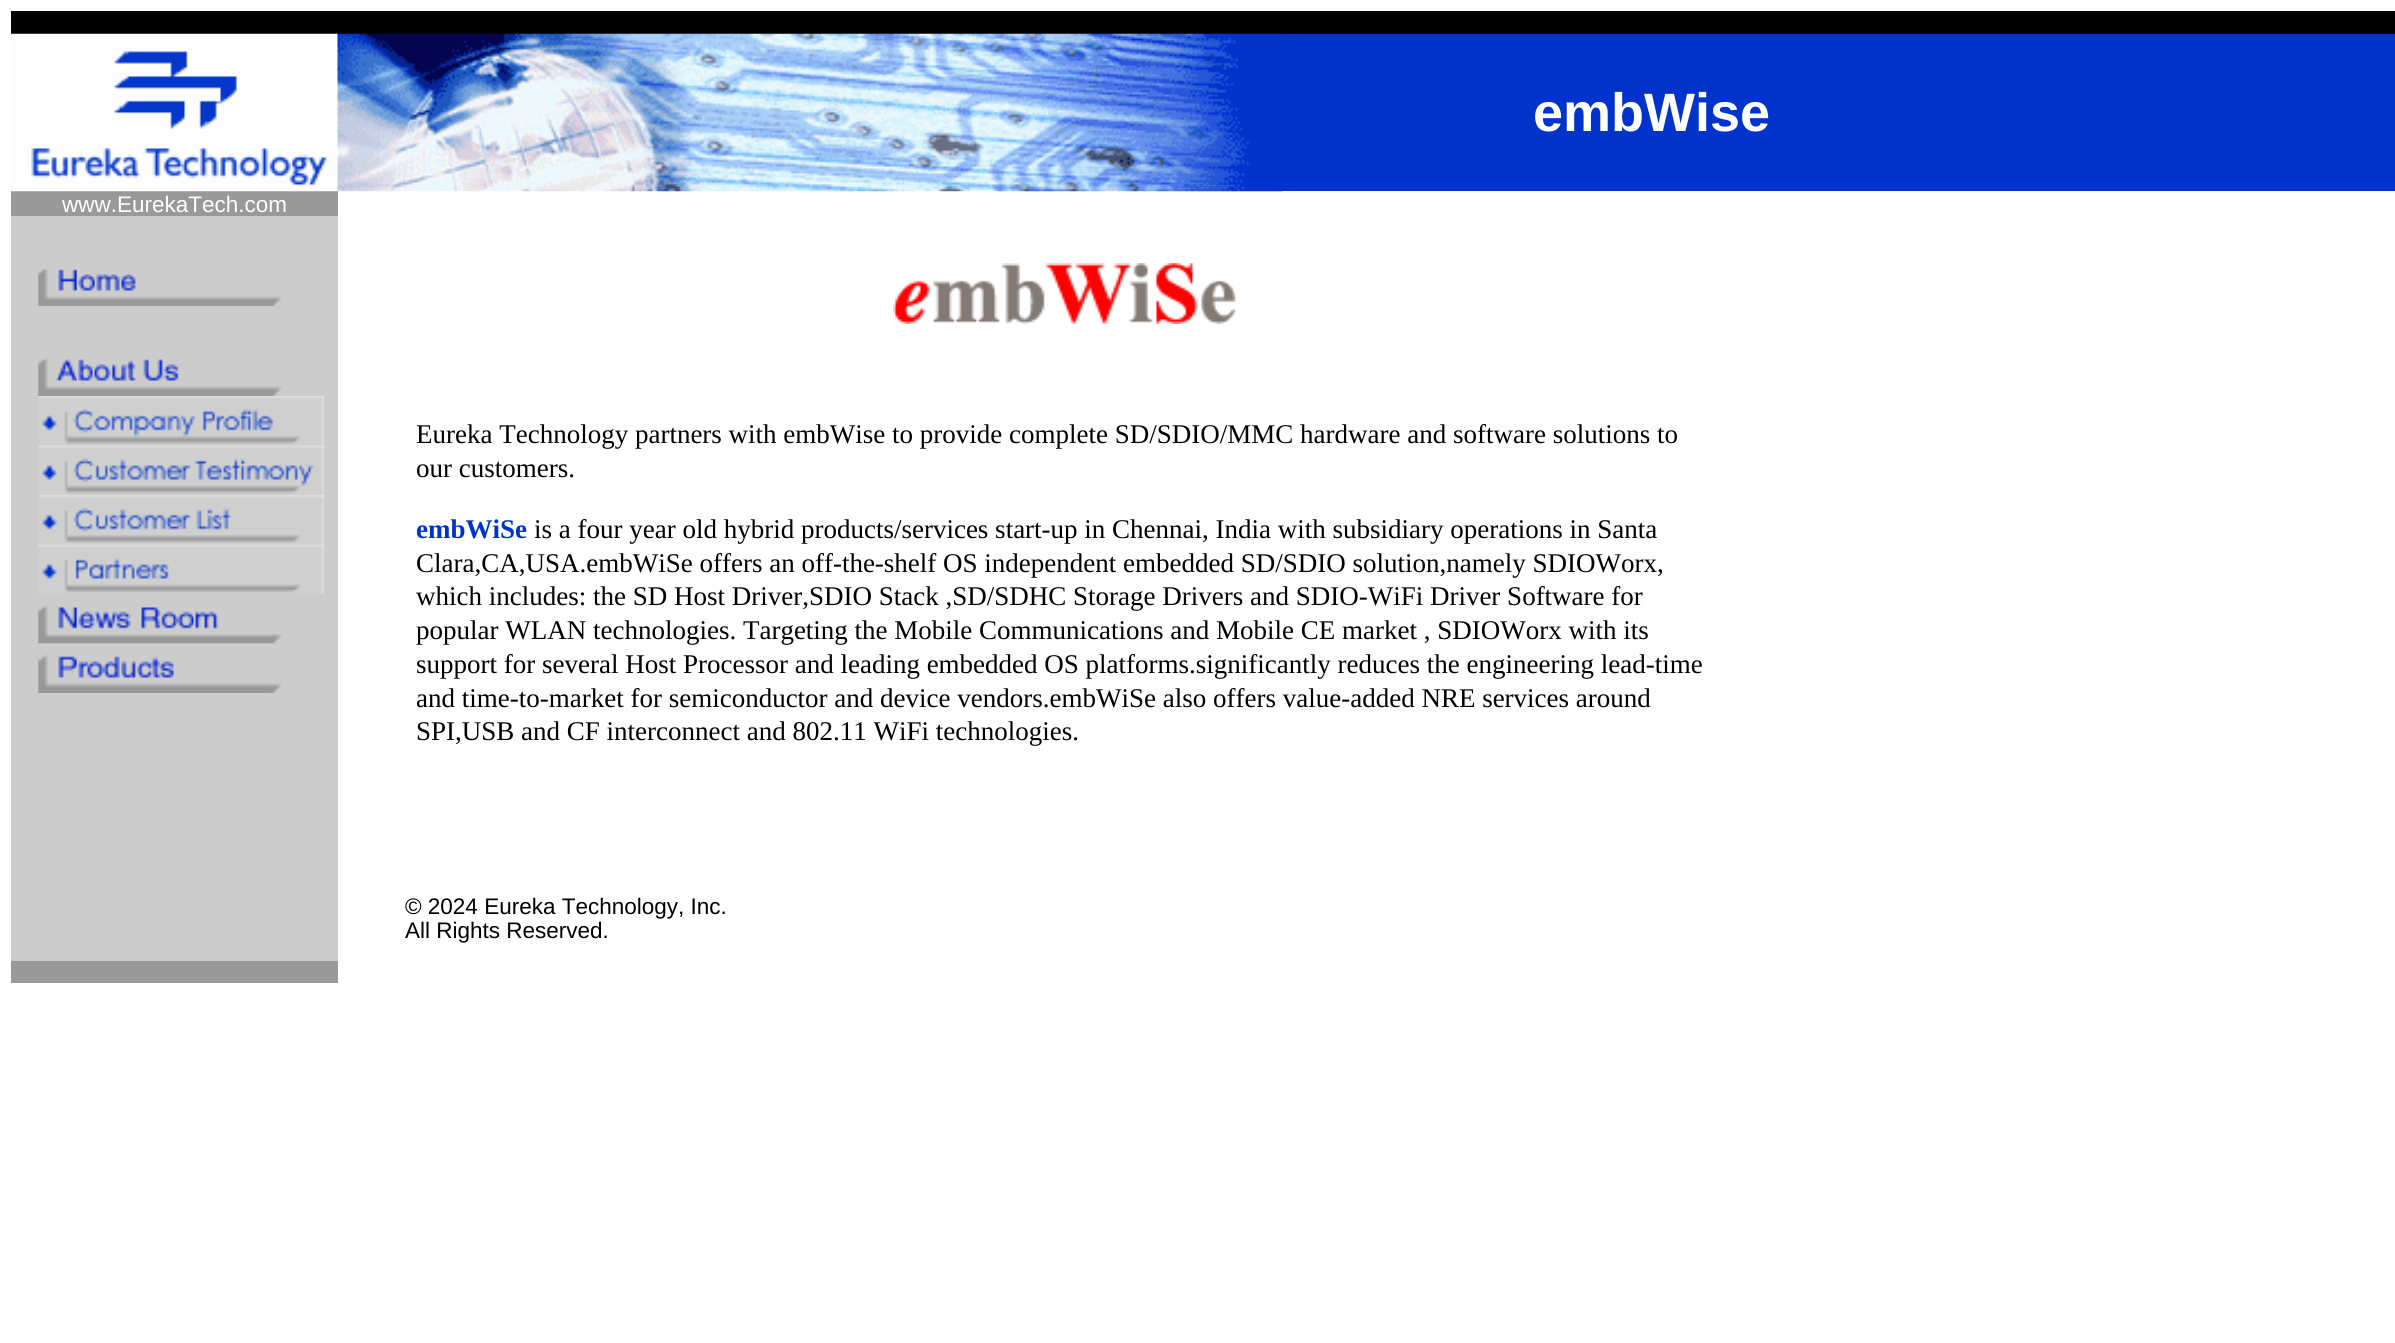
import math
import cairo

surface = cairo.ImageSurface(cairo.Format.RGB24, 2395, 1343)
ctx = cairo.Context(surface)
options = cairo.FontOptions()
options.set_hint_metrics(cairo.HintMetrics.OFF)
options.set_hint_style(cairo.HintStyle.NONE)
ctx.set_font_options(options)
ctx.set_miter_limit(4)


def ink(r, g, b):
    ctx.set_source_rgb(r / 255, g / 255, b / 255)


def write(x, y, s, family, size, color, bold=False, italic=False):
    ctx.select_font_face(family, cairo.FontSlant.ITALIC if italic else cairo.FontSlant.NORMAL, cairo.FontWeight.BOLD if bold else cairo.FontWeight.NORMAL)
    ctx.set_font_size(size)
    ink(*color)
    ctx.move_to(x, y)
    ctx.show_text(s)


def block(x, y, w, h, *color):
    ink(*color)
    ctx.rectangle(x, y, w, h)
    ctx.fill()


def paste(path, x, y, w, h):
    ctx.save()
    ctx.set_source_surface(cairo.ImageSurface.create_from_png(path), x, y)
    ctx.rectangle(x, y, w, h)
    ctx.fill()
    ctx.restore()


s1 = dict(family="Liberation Sans", size=54, color=(255, 255, 255), bold=True)
s2 = dict(family="Liberation Sans", size=22.5, color=(255, 255, 255))
s3 = dict(family="Liberation Serif", size=27, color=(0, 0, 0))
s4 = dict(family="Liberation Serif", size=27, color=(0, 51, 204), bold=True)
s5 = dict(family="Liberation Sans", size=22.5, color=(0, 0, 0))

ink(255, 255, 255)
ctx.paint()
block(11, 11, 2384, 23, 0, 0, 0)
block(11, 191, 327, 25, 153, 153, 153)
paste("pic1.png", 11, 33, 327, 159)
block(1282, 34, 1113, 157, 0, 51, 204)
paste("pic2.png", 337, 33, 946, 159)
write(1533, 131, "embWise", **s1)
block(11, 216, 327, 745, 204, 204, 204)
write(62, 212, "www.EurekaTech.com", **s2)
paste("pic3.png", 38, 267, 244, 39)
paste("pic4.png", 38, 357, 244, 39)
paste("pic5.png", 38, 396, 286, 50)
paste("pic6.png", 38, 445, 286, 50)
paste("pic7.png", 38, 495, 286, 50)
paste("pic8.png", 38, 544, 286, 50)
paste("pic9.png", 38, 605, 244, 39)
paste("pic10.png", 38, 643, 244, 50)
paste("pic11.png", 893, 263, 343, 61)
write(416, 443, "Eureka Technology partners with embWise to provide complete SD/SDIO/MMC hardware and software solutions to", **s3)
write(416, 477, "our customers.", **s3)
write(416, 538, "embWiSe", **s4)
write(534, 538, "is a four year old hybrid products/services start-up in Chennai, India with subsidiary operations in Santa", **s3)
write(416, 572, "Clara,CA,USA.embWiSe offers an off-the-shelf OS independent embedded SD/SDIO solution,namely SDIOWorx,", **s3)
write(416, 605, "which includes: the SD Host Driver,SDIO Stack ,SD/SDHC Storage Drivers and SDIO-WiFi Driver Software for", **s3)
write(416, 639, "popular WLAN technologies. Targeting the Mobile Communications and Mobile CE market , SDIOWorx with its", **s3)
write(416, 673, "support for several Host Processor and leading embedded OS platforms.significantly reduces the engineering lead-time", **s3)
write(416, 707, "and time-to-market for semiconductor and device vendors.embWiSe also offers value-added NRE services around", **s3)
write(416, 740, "SPI,USB and CF interconnect and 802.11 WiFi technologies.", **s3)
write(405, 914, "© 2024 Eureka Technology, Inc.", **s5)
write(405, 938, "All Rights Reserved.", **s5)
block(11, 961, 327, 22, 153, 153, 153)
surface.write_to_png("screenshot.png")
